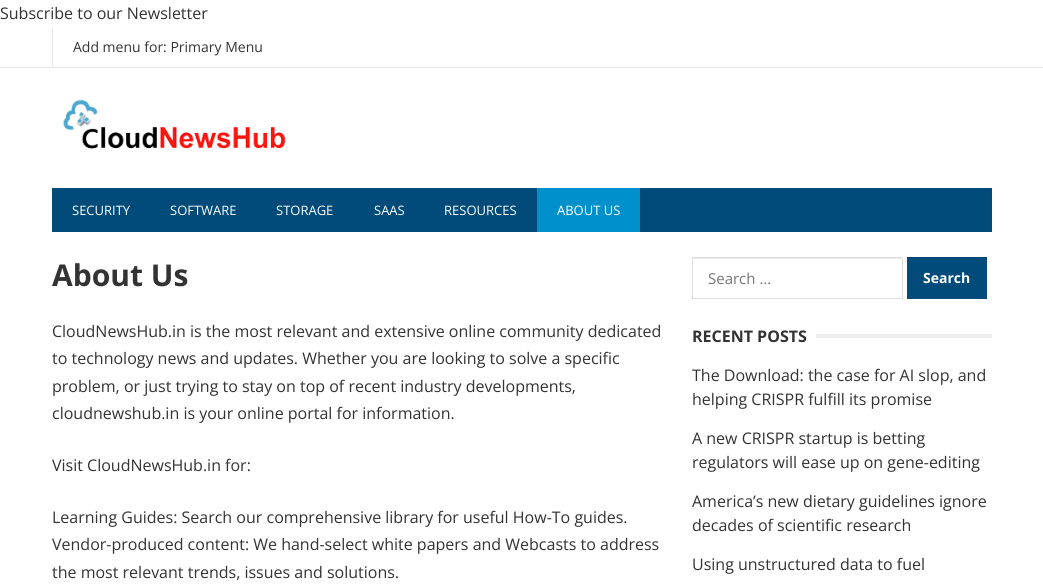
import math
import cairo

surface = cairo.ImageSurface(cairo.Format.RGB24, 1043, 588)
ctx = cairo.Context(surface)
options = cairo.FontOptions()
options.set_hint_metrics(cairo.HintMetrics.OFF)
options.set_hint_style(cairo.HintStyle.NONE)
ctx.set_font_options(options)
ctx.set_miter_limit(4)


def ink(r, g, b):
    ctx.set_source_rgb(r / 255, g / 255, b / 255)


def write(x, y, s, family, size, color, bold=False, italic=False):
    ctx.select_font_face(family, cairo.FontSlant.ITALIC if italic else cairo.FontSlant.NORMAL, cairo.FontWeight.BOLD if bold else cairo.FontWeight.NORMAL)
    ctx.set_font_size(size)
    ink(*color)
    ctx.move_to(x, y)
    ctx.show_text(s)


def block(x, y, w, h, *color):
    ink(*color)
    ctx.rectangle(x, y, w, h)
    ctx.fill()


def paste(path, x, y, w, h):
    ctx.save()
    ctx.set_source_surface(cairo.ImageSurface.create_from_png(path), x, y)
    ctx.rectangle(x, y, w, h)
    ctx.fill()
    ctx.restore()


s1 = dict(family="Open Sans", size=16, color=(51, 51, 51))
s2 = dict(family="Open Sans", size=14, color=(51, 51, 51))
s3 = dict(family="Open Sans", size=13, color=(255, 255, 255))
s4 = dict(family="Open Sans", size=30, color=(51, 51, 51), bold=True)
s5 = dict(family="Open Sans", size=15, color=(117, 117, 117))
s6 = dict(family="Open Sans", size=14, color=(255, 255, 255), bold=True)
s7 = dict(family="Open Sans", size=16, color=(51, 51, 51), bold=True)

ink(255, 255, 255)
ctx.paint()
write(0, 19, "Subscribe to our Newsletter", **s1)
block(0, 67, 1043, 1, 233, 233, 233)
block(52, 27, 1, 40, 233, 233, 233)
write(73, 52, "Add menu for: Primary Menu", **s2)
paste("pic1.png", 63, 99, 223, 50)
block(52, 188, 940, 44, 0, 75, 121)
write(72, 215, "SECURITY", **s3)
write(170, 215, "SOFTWARE", **s3)
write(276, 215, "STORAGE", **s3)
write(374, 215, "SAAS", **s3)
write(444, 215, "RESOURCES", **s3)
block(537, 188, 103, 44, 0, 145, 205)
write(557, 215, "ABOUT US", **s3)
write(52, 286, "About Us", **s4)
write(52, 337, "CloudNewsHub.in is the most relevant and extensive online community dedicated", **s1)
write(52, 364, "to technology news and updates. Whether you are looking to solve a specific", **s1)
write(52, 392, "problem, or just trying to stay on top of recent industry developments,", **s1)
write(52, 419, "cloudnewshub.in is your online portal for information.", **s1)
write(52, 471, "Visit CloudNewsHub.in for:", **s1)
write(52, 523, "Learning Guides: Search our comprehensive library for useful How-To guides.", **s1)
write(52, 550, "Vendor-produced content: We hand-select white papers and Webcasts to address", **s1)
write(52, 578, "the most relevant trends, issues and solutions.", **s1)
block(693, 258, 209, 1, 236, 236, 236)
ctx.rectangle(692.5, 257.5, 210, 41)
ink(221, 221, 221)
ctx.set_line_width(1)
ctx.stroke()
write(708, 284, "Search …", **s5)
block(907, 258, 80, 41, 0, 75, 121)
block(907, 257, 80, 1, 0, 69, 112)
write(923, 283, "Search", **s6)
write(692, 342, "RECENT POSTS", **s7)
block(816, 334, 176, 4, 238, 238, 238)
write(692, 381, "The Download: the case for AI slop, and", **s1)
write(692, 405, "helping CRISPR fulfill its promise", **s1)
write(692, 444, "A new CRISPR startup is betting", **s1)
write(692, 468, "regulators will ease up on gene-editing", **s1)
write(692, 507, "America’s new dietary guidelines ignore", **s1)
write(692, 531, "decades of scientific research", **s1)
write(692, 570, "Using unstructured data to fuel", **s1)
surface.write_to_png("screenshot.png")
